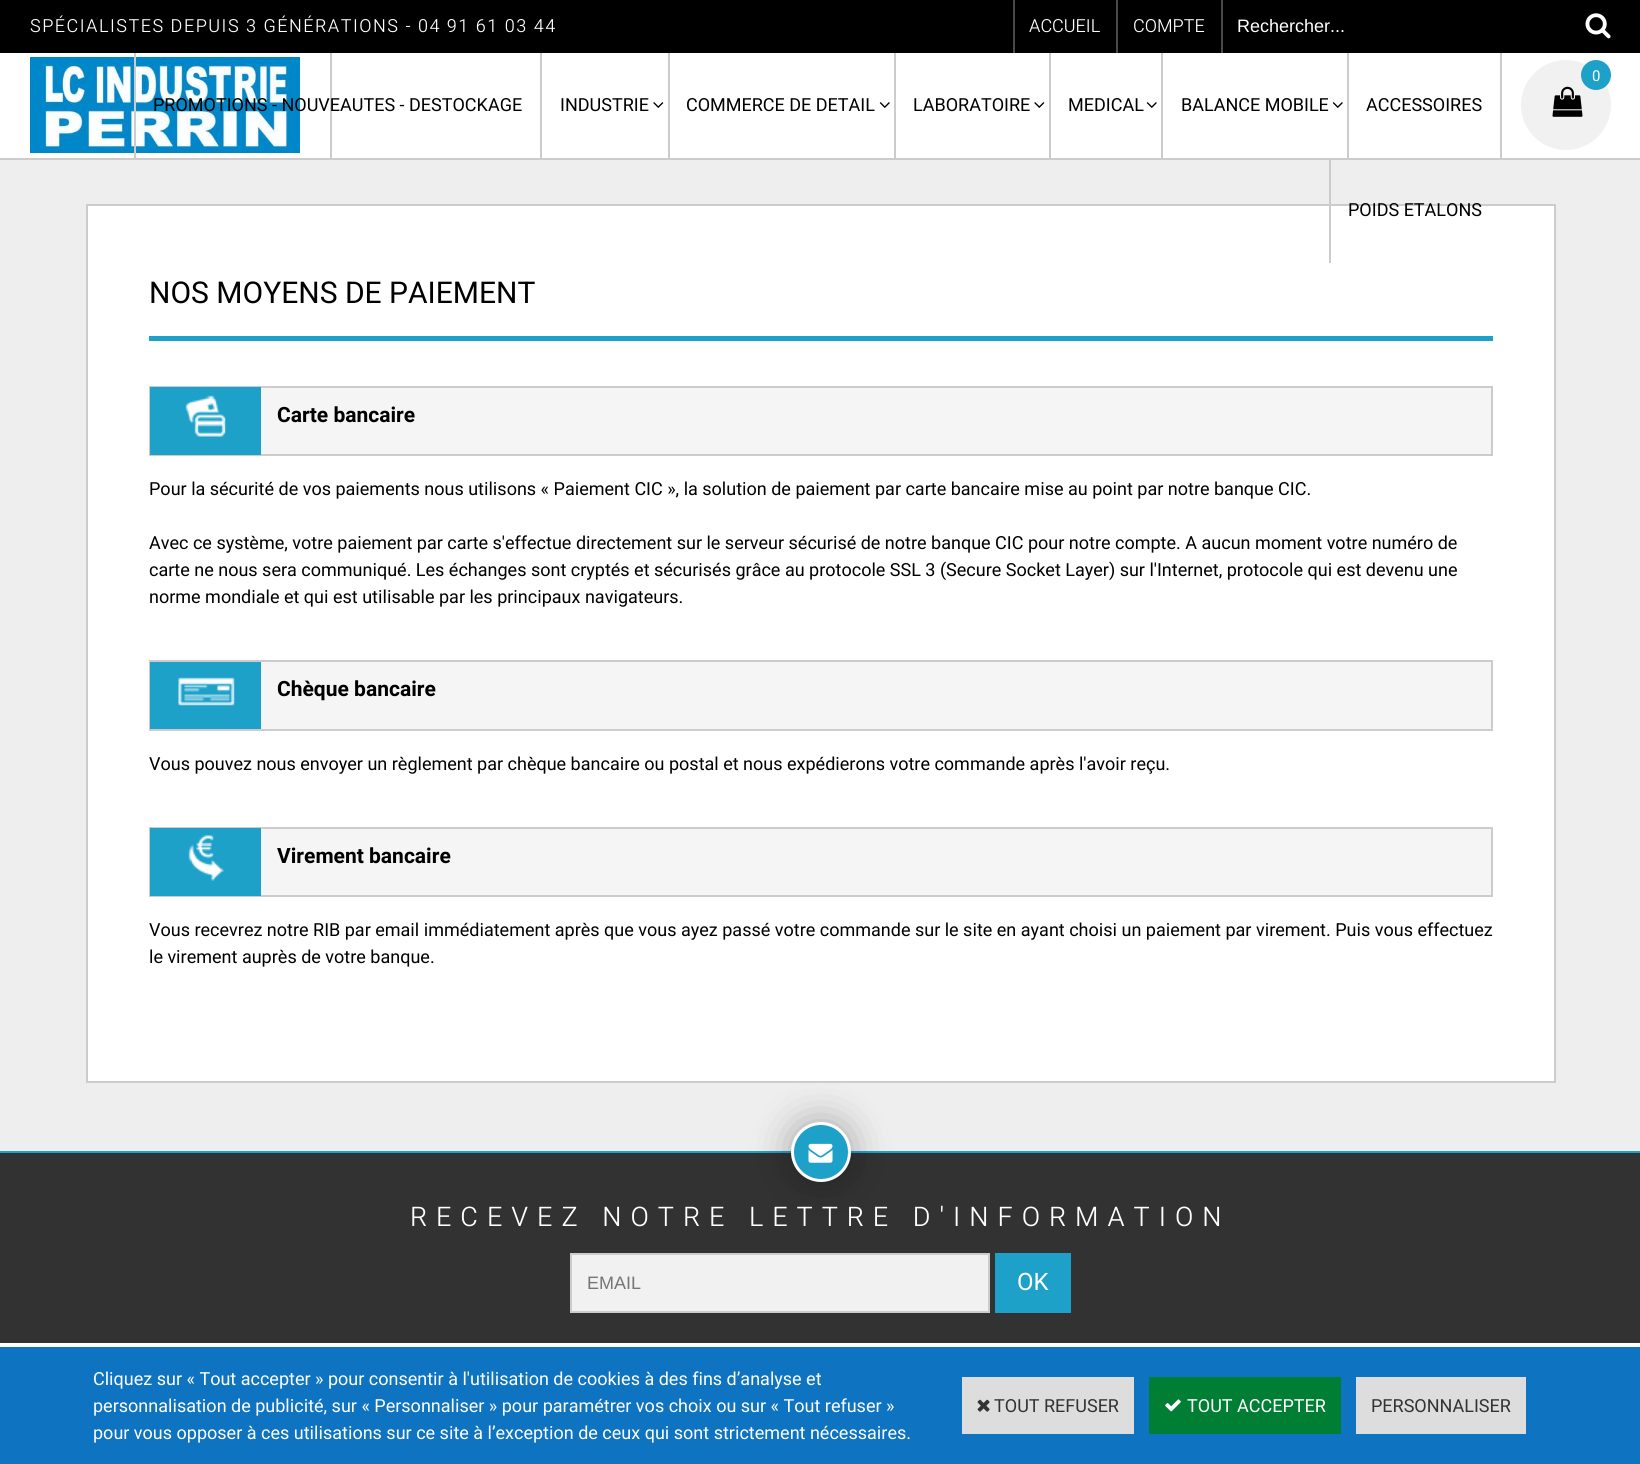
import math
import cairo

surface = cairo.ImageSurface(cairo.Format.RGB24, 1640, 1464)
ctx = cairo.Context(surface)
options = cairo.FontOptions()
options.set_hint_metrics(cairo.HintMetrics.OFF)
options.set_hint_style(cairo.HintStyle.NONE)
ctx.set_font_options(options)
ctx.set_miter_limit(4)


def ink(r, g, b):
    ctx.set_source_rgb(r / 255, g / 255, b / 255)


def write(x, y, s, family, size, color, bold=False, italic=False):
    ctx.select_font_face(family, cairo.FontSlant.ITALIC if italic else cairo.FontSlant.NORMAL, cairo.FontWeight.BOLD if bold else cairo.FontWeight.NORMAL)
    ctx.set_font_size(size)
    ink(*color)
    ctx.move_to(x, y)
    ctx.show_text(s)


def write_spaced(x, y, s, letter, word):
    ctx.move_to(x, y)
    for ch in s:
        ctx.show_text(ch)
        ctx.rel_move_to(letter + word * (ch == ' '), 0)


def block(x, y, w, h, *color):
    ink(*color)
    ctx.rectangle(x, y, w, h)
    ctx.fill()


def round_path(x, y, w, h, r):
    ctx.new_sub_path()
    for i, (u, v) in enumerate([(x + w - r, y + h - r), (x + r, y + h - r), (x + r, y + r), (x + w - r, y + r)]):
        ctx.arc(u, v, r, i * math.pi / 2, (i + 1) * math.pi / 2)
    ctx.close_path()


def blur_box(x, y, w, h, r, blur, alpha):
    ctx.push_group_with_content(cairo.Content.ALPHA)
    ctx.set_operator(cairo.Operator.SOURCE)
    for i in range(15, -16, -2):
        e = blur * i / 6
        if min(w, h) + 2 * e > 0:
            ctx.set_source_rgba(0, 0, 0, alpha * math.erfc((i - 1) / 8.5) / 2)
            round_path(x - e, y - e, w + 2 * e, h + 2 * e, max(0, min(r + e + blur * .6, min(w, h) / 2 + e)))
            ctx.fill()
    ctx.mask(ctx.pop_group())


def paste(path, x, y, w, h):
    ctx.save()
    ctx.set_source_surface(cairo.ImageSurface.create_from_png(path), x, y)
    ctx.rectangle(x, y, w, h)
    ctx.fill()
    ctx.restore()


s1 = dict(family="Heebo Light", size=18, color=(255, 255, 255))
s2 = dict(family="Liberation Sans", size=18, color=(255, 255, 255))
s3 = dict(family="Heebo", size=15, color=(255, 255, 255))
s4 = dict(family="Heebo", size=18, color=(0, 0, 0))
s5 = dict(family="Heebo", size=30, color=(0, 0, 0))
s6 = dict(family="Heebo", size=21, color=(0, 0, 0), bold=True)
s7 = dict(family="Liberation Sans", size=18, color=(117, 117, 117))
s8 = dict(family="Heebo", size=24, color=(255, 255, 255))
s9 = dict(family="Heebo", size=18, color=(255, 255, 255))
s10 = dict(family="Heebo", size=18, color=(51, 51, 51))

ink(238, 238, 238)
ctx.paint()
block(0, 53, 1640, 105, 255, 255, 255)
block(0, 0, 1640, 53, 0, 0, 0)
block(0, 158, 1640, 2, 204, 204, 204)
ctx.select_font_face("Heebo Light")
ctx.set_font_size(18)
ink(255, 255, 255)
write_spaced(30, 32, "SPÉCIALISTES DEPUIS 3 GÉNÉRATIONS - 04 91 61 03 44", 1.5, 0)
block(1013, 0, 2, 53, 74, 73, 73)
write(1029, 32, "ACCUEIL", **s1)
block(1116, 0, 2, 53, 74, 73, 73)
write(1133, 32, "COMPTE", **s1)
block(1221, 0, 2, 53, 74, 73, 73)
write(1237, 32, "Rechercher...", **s2)
paste("pic1.png", 1585, 13, 26, 26)
block(330, 53, 2, 105, 204, 204, 204)
paste("pic2.png", 30, 57, 270, 96)
block(1500, 53, 2, 105, 204, 204, 204)
ink(241, 241, 241)
ctx.arc(1566, 105, 45, 0, 2 * math.pi)
ctx.fill()
ink(29, 161, 201)
ctx.arc(1596, 75, 15, 0, 2 * math.pi)
ctx.fill()
write(1592, 81, "0", **s3)
paste("pic3.png", 1552, 86, 31, 31)
block(134, 53, 2, 105, 204, 204, 204)
write(153, 111, "PROMOTIONS - NOUVEAUTES - DESTOCKAGE", **s4)
block(540, 53, 2, 105, 204, 204, 204)
write(560, 111, "INDUSTRIE", **s4)
paste("pic4.png", 653, 102, 11, 6)
block(668, 53, 2, 105, 204, 204, 204)
write(686, 111, "COMMERCE DE DETAIL", **s4)
paste("pic5.png", 879, 102, 11, 6)
block(894, 53, 2, 105, 204, 204, 204)
write(913, 111, "LABORATOIRE", **s4)
paste("pic4.png", 1034, 102, 11, 6)
block(1049, 53, 2, 105, 204, 204, 204)
write(1068, 111, "MEDICAL", **s4)
paste("pic5.png", 1146, 102, 11, 6)
block(1161, 53, 2, 105, 204, 204, 204)
write(1181, 111, "BALANCE MOBILE", **s4)
paste("pic5.png", 1332, 102, 11, 6)
block(1347, 53, 2, 105, 204, 204, 204)
write(1366, 111, "ACCESSOIRES", **s4)
block(0, 1153, 1640, 190, 50, 50, 50)
block(0, 1151, 1640, 2, 29, 161, 201)
ink(0, 0, 0)
blur_box(791, 1122, 60, 60, 30, 19, 0.3)
ink(255, 255, 255)
ctx.rectangle(87, 205, 1468, 877)
ctx.fill_preserve()
ink(204, 204, 204)
ctx.stroke()
block(1329, 158, 2, 105, 204, 204, 204)
write(1348, 216, "POIDS ETALONS", **s4)
write(149, 303, "NOS MOYENS DE PAIEMENT", **s5)
block(149, 336, 1344, 5, 29, 161, 201)
block(261, 388, 1230, 66, 245, 245, 245)
ctx.rectangle(150, 387, 1342, 68)
ink(204, 204, 204)
ctx.stroke()
block(150, 387, 111, 68, 29, 161, 201)
paste("pic6.png", 185, 395, 41, 42)
write(277, 422, "Carte bancaire", **s6)
write(149, 495, "Pour la sécurité de vos paiements nous utilisons « Paiement CIC », la solution de paiement par carte bancaire mise au point par notre banque CIC.", **s4)
write(149, 549, "Avec ce système, votre paiement par carte s'effectue directement sur le serveur sécurisé de notre banque CIC pour notre compte. A aucun moment votre numéro de", **s4)
write(149, 576, "carte ne nous sera communiqué. Les échanges sont cryptés et sécurisés grâce au protocole SSL 3 (Secure Socket Layer) sur l'Internet, protocole qui est devenu une", **s4)
write(149, 603, "norme mondiale et qui est utilisable par les principaux navigateurs.", **s4)
block(261, 662, 1230, 67, 245, 245, 245)
ctx.rectangle(150, 661, 1342, 69)
ink(204, 204, 204)
ctx.stroke()
block(150, 662, 111, 67, 29, 161, 201)
paste("pic7.png", 178, 677, 57, 29)
write(277, 696, "Chèque bancaire", **s6)
write(149, 770, "Vous pouvez nous envoyer un règlement par chèque bancaire ou postal et nous expédierons votre commande après l'avoir reçu.", **s4)
block(261, 829, 1230, 66, 245, 245, 245)
ctx.rectangle(150, 828, 1342, 68)
ink(204, 204, 204)
ctx.stroke()
block(150, 828, 111, 68, 29, 161, 201)
paste("pic8.png", 188, 835, 36, 46)
write(277, 863, "Virement bancaire", **s6)
write(149, 936, "Vous recevrez notre RIB par email immédiatement après que vous ayez passé votre commande sur le site en ayant choisi un paiement par virement. Puis vous effectuez", **s4)
write(149, 963, "le virement auprès de votre banque.", **s4)
block(0, 1343, 1640, 4, 255, 255, 255)
ink(29, 161, 201)
ctx.new_path()
ctx.arc(821, 1152, 28.5, 0, 2 * math.pi)
ctx.fill_preserve()
ink(255, 255, 255)
ctx.set_line_width(3)
ctx.stroke()
paste("pic9.png", 808, 1143, 25, 20)
ctx.select_font_face("Heebo Light")
ctx.set_font_size(27)
write_spaced(410, 1226, "RECEVEZ NOTRE LETTRE D'INFORMATION", 9, 0)
ink(241, 241, 241)
ctx.rectangle(571, 1254, 418, 58)
ctx.fill_preserve()
ink(204, 204, 204)
ctx.set_line_width(2)
ctx.stroke()
write(587, 1289, "EMAIL", **s7)
block(995, 1253, 76, 60, 29, 161, 201)
write(1017, 1290, "OK", **s8)
block(0, 1347, 1640, 117, 14, 115, 192)
write(93, 1385, "Cliquez sur « Tout accepter » pour consentir à l'utilisation de cookies à des fins d’analyse et", **s9)
write(93, 1412, "personnalisation de publicité, sur « Personnaliser » pour paramétrer vos choix ou sur « Tout refuser »", **s9)
write(93, 1439, "pour vous opposer à ces utilisations sur ce site à l’exception de ceux qui sont strictement nécessaires.", **s9)
block(962, 1377, 172, 57, 221, 221, 221)
paste("pic10.png", 977, 1399, 13, 13)
write(994, 1412, "TOUT REFUSER", **s10)
block(1149, 1377, 192, 57, 0, 126, 51)
paste("pic11.png", 1165, 1399, 16, 13)
write(1187, 1412, "TOUT ACCEPTER", **s9)
block(1356, 1377, 170, 57, 221, 221, 221)
write(1371, 1412, "PERSONNALISER", **s10)
surface.write_to_png("screenshot.png")
